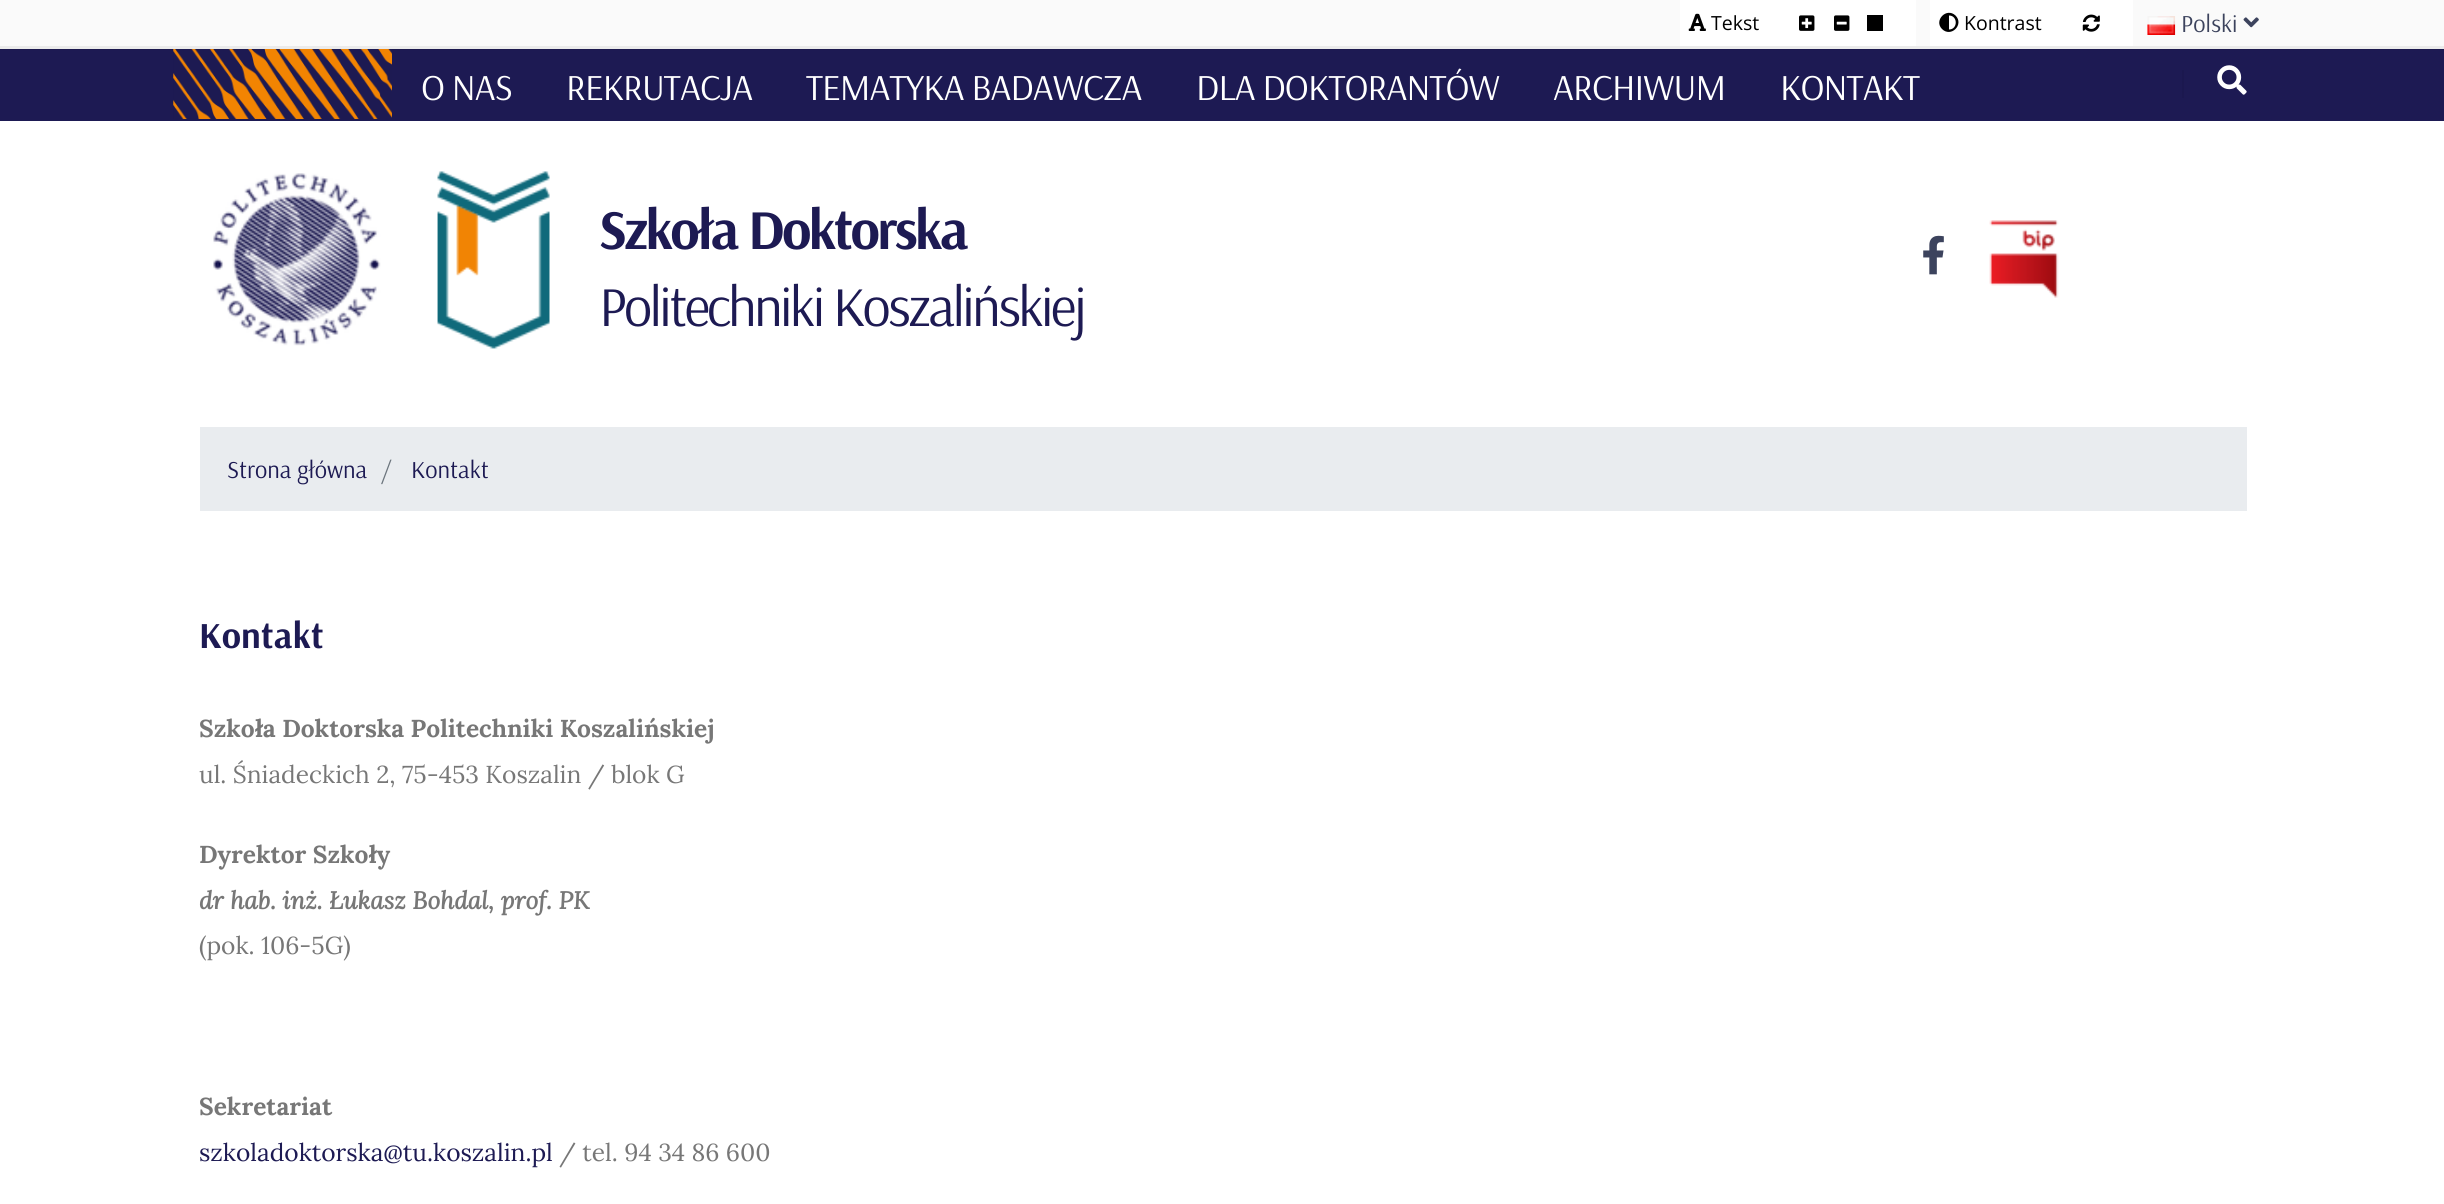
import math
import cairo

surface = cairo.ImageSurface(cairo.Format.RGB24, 2444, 1204)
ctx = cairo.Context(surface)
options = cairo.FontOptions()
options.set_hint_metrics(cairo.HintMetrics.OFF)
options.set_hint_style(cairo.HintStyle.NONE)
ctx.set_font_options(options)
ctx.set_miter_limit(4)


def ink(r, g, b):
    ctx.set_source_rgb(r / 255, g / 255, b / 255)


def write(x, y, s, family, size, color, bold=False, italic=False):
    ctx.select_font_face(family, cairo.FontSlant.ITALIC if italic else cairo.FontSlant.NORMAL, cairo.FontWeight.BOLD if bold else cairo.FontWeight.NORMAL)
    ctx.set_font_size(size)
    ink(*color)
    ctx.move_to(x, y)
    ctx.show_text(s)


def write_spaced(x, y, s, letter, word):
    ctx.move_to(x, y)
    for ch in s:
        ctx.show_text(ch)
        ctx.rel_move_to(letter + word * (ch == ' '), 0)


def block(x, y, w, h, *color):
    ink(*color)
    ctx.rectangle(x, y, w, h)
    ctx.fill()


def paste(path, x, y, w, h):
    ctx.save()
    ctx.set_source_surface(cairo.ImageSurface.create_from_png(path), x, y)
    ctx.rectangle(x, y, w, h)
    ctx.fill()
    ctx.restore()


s1 = dict(family="Open Sans", size=19.5, color=(0, 0, 0))
s2 = dict(family="Arsenal", size=24.5, color=(60, 67, 93))
s3 = dict(family="Arsenal", size=24.5, color=(29, 26, 83))
s4 = dict(family="Arsenal", size=24.5, color=(108, 117, 125))
s5 = dict(family="Arsenal", size=36.75, color=(29, 26, 83), bold=True)
s6 = dict(family="Lora", size=24.5, color=(119, 119, 119), bold=True)
s7 = dict(family="Lora", size=24.5, color=(119, 119, 119))
s8 = dict(family="Lora", size=24.5, color=(119, 119, 119), bold=True, italic=True)
s9 = dict(family="Lora", size=24.5, color=(29, 26, 83))

ink(255, 255, 255)
ctx.paint()
block(0, 50, 2444, 71, 29, 26, 83)
block(0, 49, 2444, 1, 27, 24, 78)
block(0, 0, 2444, 46, 250, 250, 250)
block(0, 46, 2444, 3, 235, 235, 235)
block(1680, 0, 236, 46, 255, 255, 255)
paste("pic1.png", 1688, 13, 18, 18)
write(1711, 30, "Tekst", **s1)
paste("pic2.png", 1799, 15, 16, 16)
paste("pic3.png", 1834, 15, 16, 16)
block(1867, 15, 16, 16, 0, 0, 0)
block(1930, 0, 203, 46, 255, 255, 255)
ink(0, 0, 0)
ctx.new_path()
ctx.move_to(1942, 29)
ctx.curve_to(1933.5, 20.5, 1946.5, 7, 1955.5, 15.5)
ctx.curve_to(1964.5, 24.5, 1951, 38, 1942, 29)
ctx.close_path()
ctx.move_to(1949, 29.5)
ctx.curve_to(1958, 29.5, 1958, 15.5, 1949, 15.5)
ctx.close_path()
ctx.fill()
write(1964, 30, "Kontrast", **s1)
paste("pic4.png", 2082, 14, 18, 18)
paste("pic5.png", 2147, 16, 29, 19)
write(2181, 32, "Polski", **s2)
paste("pic6.png", 2243, 17, 16, 11)
paste("pic7.png", 173, 49, 219, 70)
ctx.set_font_size(36.75)
ink(255, 255, 255)
write_spaced(421, 100, "O NAS", -0.9, 0)
write_spaced(566, 100, "REKRUTACJA", -0.9, 0)
write_spaced(806, 100, "TEMATYKA BADAWCZA", -0.9, 0)
write_spaced(1196, 100, "DLA DOKTORANTÓW", -0.9, 0)
write_spaced(1553, 100, "ARCHIWUM", -0.9, 0)
write_spaced(1780, 100, "KONTAKT", -0.9, 0)
block(2182, 70, 2, 28, 27, 24, 79)
paste("pic8.png", 2217, 65, 30, 30)
paste("pic9.png", 213, 173, 168, 173)
paste("pic10.png", 437, 171, 113, 178)
ctx.select_font_face("Arsenal", cairo.FontSlant.NORMAL, cairo.FontWeight.BOLD)
ctx.set_font_size(56.25)
ink(29, 26, 83)
write_spaced(599, 249, "Szkoła Doktorska", -2.8, 0)
ctx.select_font_face("Arsenal")
write_spaced(599, 326, "Politechniki Koszalińskiej", -2.8, 0)
paste("pic11.png", 1923, 235, 21, 40)
paste("pic12.png", 1989, 220, 70, 78)
block(200, 427, 2047, 84, 233, 236, 239)
write(227, 478, "Strona główna", **s3)
write(381, 478, "/", **s4)
write(411, 478, "Kontakt", **s3)
write(199, 648, "Kontakt", **s5)
write(199, 737, "Szkoła Doktorska Politechniki Koszalińskiej", **s6)
write(199, 783, "ul. Śniadeckich 2, 75-453 Koszalin / blok G", **s7)
write(199, 863, "Dyrektor Szkoły", **s6)
write(199, 909, "dr hab. inż. Łukasz Bohdal, prof. PK", **s8)
write(199, 954, "(pok. 106-5G)", **s7)
write(199, 1115, "Sekretariat", **s6)
write(199, 1161, "szkoladoktorska@tu.koszalin.pl", **s9)
write(559, 1161, "/ tel. 94 34 86 600", **s7)
surface.write_to_png("screenshot.png")
